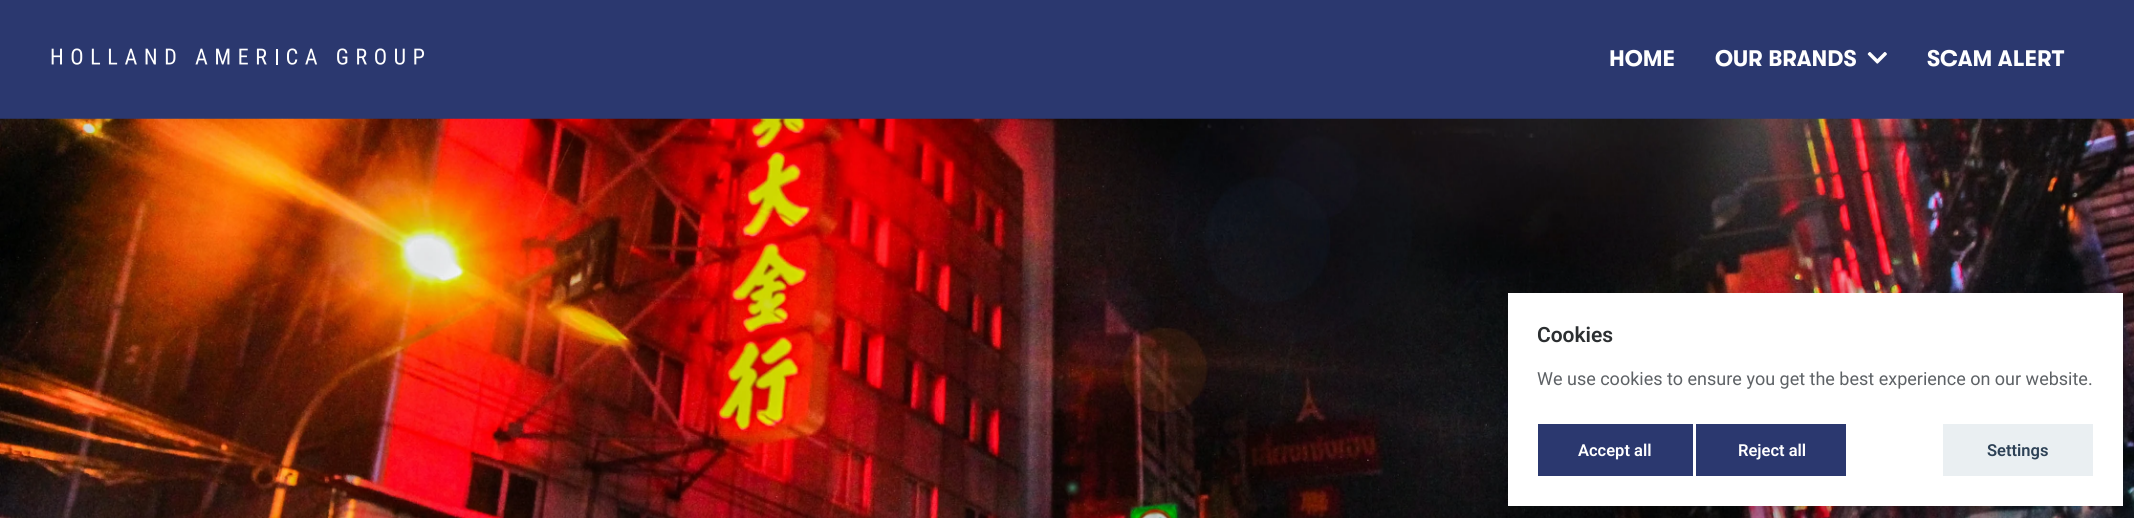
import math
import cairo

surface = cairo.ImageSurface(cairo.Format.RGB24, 2134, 518)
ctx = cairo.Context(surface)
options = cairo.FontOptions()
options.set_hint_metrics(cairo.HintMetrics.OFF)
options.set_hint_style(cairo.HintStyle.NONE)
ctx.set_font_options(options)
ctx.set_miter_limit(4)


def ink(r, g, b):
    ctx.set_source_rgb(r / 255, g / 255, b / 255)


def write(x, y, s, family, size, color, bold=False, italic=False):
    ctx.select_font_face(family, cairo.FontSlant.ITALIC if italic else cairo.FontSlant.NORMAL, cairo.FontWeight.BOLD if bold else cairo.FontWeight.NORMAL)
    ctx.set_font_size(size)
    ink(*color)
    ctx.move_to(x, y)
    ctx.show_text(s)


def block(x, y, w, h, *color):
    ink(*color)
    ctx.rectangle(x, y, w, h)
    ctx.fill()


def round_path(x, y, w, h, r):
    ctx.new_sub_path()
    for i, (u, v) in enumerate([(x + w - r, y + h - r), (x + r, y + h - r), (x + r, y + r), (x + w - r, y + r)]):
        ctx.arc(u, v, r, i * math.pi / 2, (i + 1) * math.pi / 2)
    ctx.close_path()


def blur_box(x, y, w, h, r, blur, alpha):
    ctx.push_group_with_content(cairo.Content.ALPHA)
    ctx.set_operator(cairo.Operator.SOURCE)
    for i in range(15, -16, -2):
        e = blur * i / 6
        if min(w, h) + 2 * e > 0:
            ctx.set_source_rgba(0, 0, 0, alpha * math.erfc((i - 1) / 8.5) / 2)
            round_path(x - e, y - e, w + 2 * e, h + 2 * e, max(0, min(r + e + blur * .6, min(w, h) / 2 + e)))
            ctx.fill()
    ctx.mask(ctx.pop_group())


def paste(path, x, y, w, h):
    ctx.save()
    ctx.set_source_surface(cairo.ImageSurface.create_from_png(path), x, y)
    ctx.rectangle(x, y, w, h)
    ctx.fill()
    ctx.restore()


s1 = dict(family="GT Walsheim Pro", size=22.5, color=(255, 255, 255), bold=True)
s2 = dict(family="Roboto SemiBold", size=21, color=(44, 47, 49))
s3 = dict(family="Roboto", size=18, color=(94, 98, 102))
s4 = dict(family="Roboto SemiBold", size=16.5, color=(255, 255, 255))
s5 = dict(family="Roboto SemiBold", size=16.5, color=(45, 65, 86))

ink(43, 56, 111)
ctx.paint()
paste("pic1.png", 51, 48, 374, 17)
write(1609, 66, "HOME", **s1)
write(1715, 66, "OUR BRANDS", **s1)
paste("pic2.png", 1867, 52, 20, 12)
write(1927, 66, "SCAM ALERT", **s1)
paste("pic3.png", 0, 118, 2134, 400)
ink(0, 0, 2)
blur_box(1508, 305, 615, 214, 0, 19, 0.3)
block(1508, 293, 615, 213, 255, 255, 255)
write(1537, 342, "Cookies", **s2)
write(1537, 385, "We use cookies to ensure you get the best experience on our website.", **s3)
block(1538, 424, 155, 52, 43, 56, 111)
write(1578, 456, "Accept all", **s4)
block(1696, 424, 150, 52, 43, 56, 111)
write(1738, 456, "Reject all", **s4)
block(1943, 424, 150, 52, 234, 239, 242)
write(1987, 456, "Settings", **s5)
surface.write_to_png("screenshot.png")
